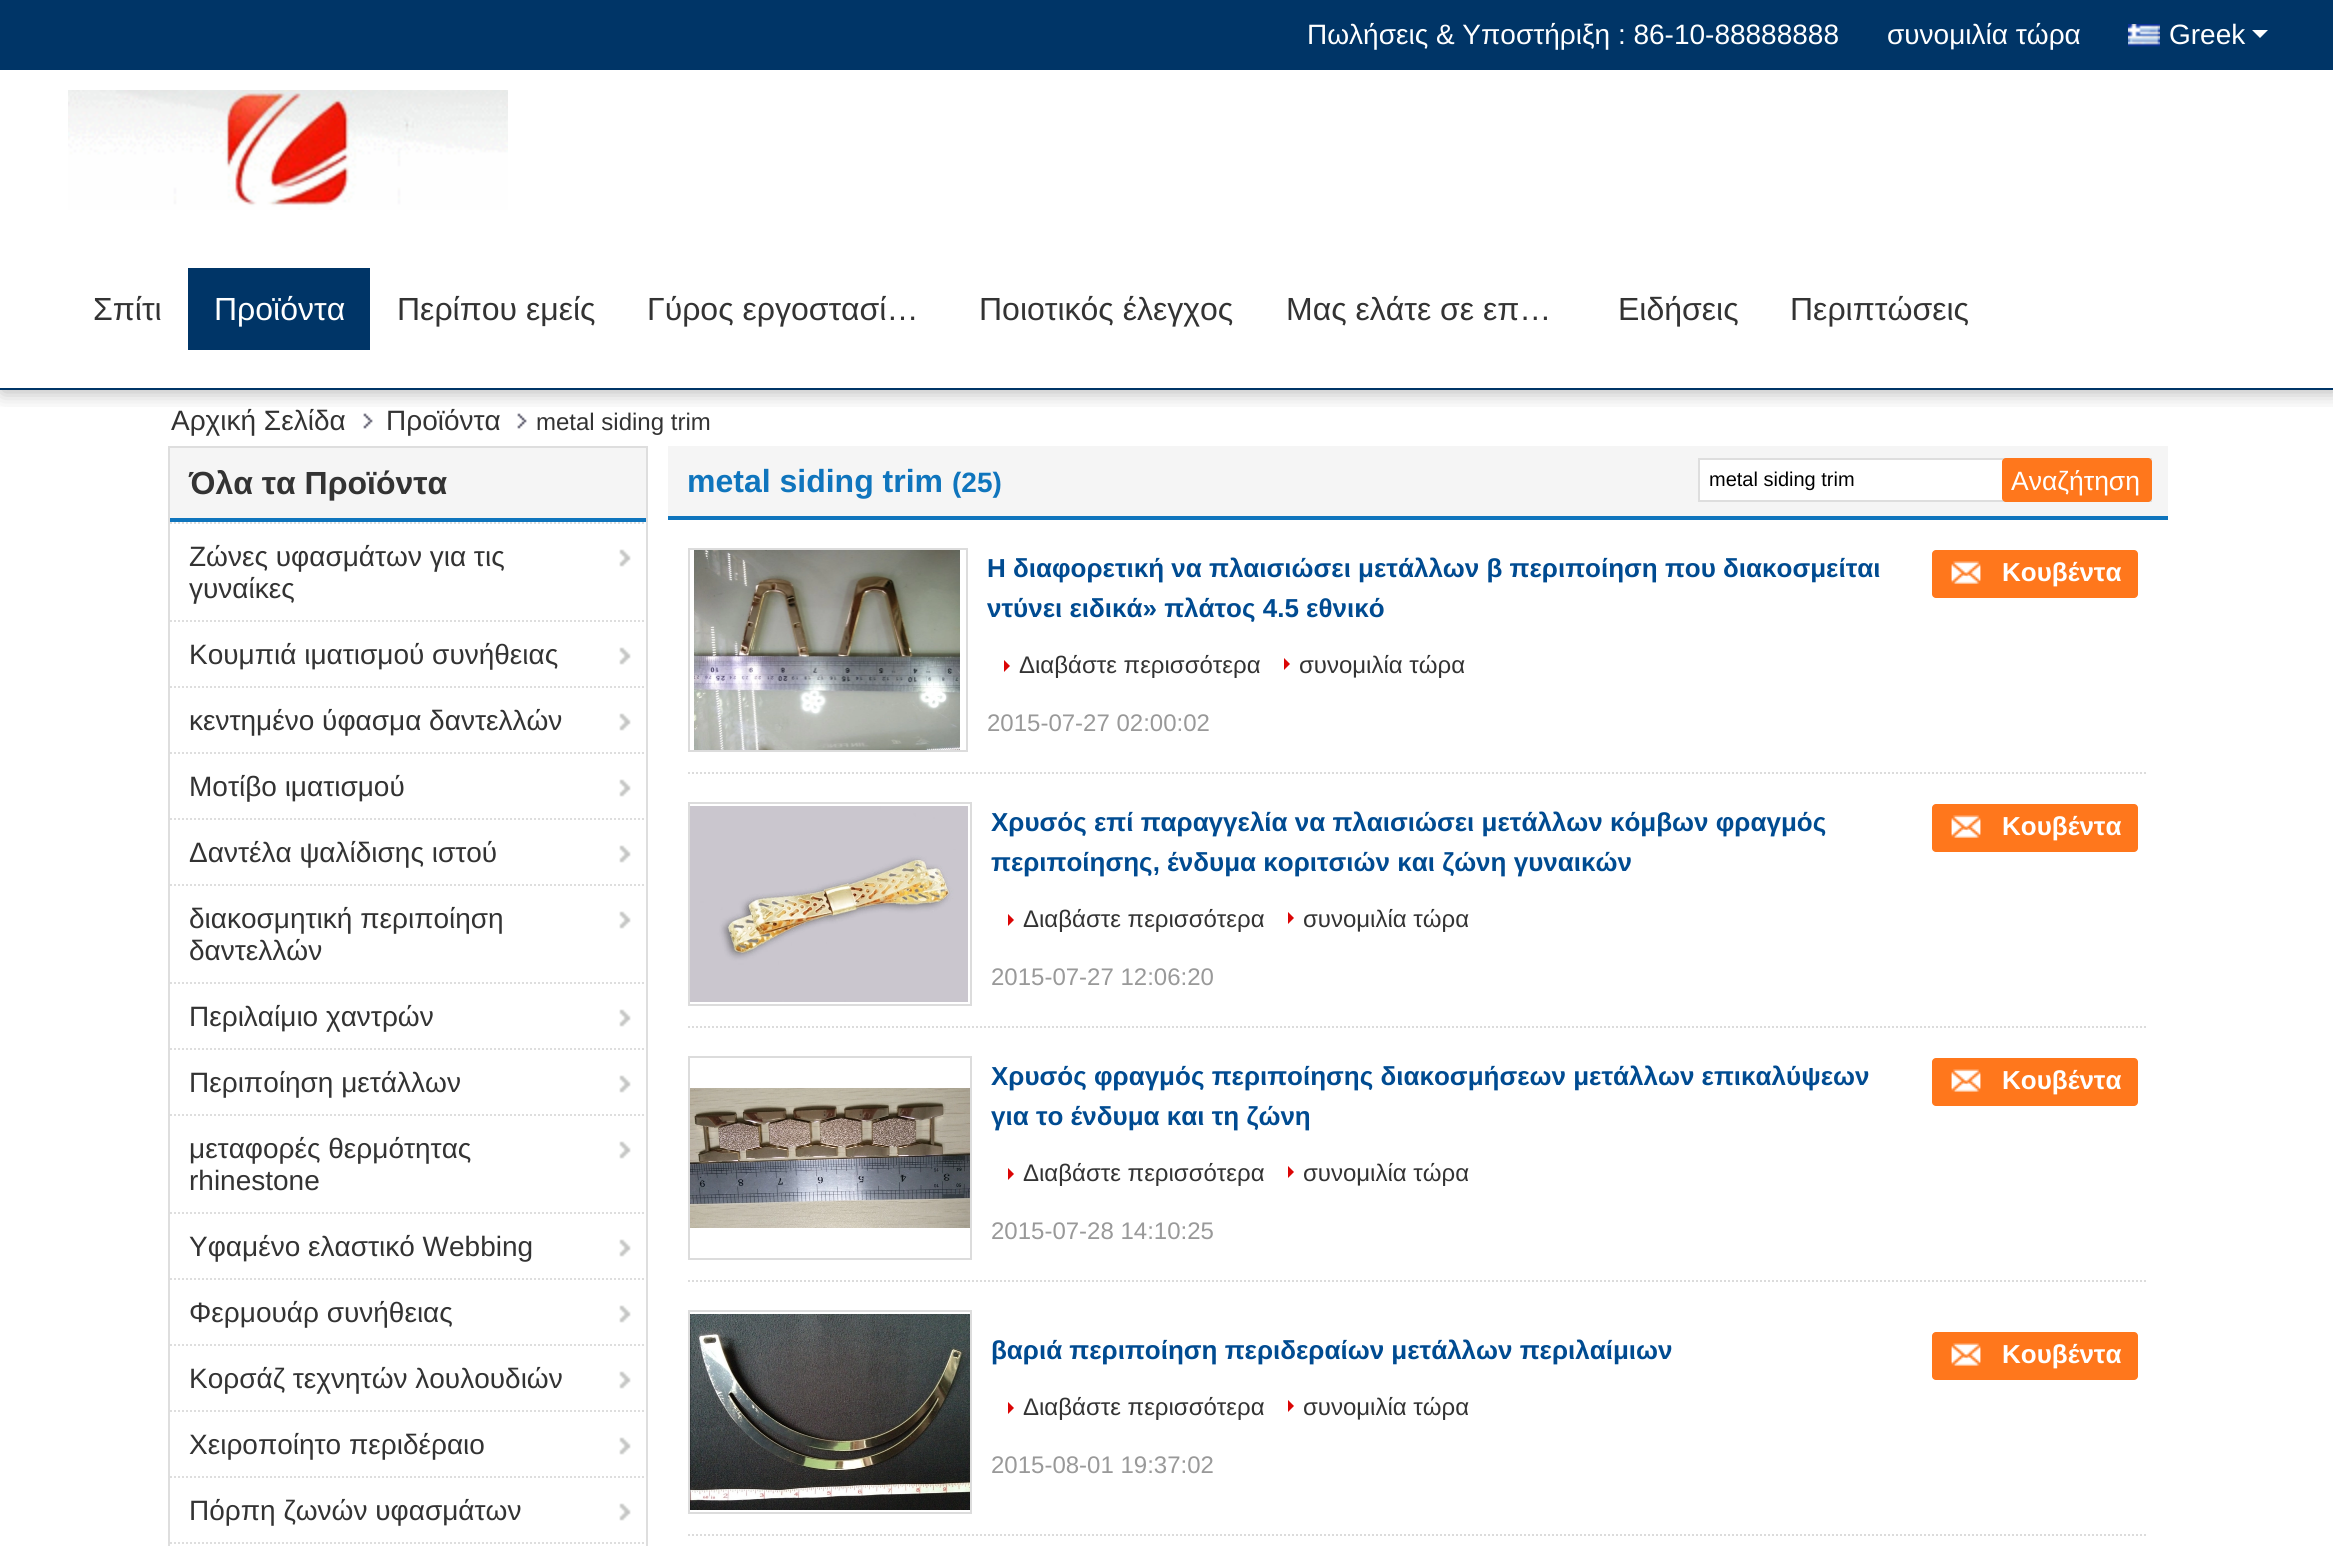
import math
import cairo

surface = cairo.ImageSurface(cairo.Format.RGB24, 2333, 1546)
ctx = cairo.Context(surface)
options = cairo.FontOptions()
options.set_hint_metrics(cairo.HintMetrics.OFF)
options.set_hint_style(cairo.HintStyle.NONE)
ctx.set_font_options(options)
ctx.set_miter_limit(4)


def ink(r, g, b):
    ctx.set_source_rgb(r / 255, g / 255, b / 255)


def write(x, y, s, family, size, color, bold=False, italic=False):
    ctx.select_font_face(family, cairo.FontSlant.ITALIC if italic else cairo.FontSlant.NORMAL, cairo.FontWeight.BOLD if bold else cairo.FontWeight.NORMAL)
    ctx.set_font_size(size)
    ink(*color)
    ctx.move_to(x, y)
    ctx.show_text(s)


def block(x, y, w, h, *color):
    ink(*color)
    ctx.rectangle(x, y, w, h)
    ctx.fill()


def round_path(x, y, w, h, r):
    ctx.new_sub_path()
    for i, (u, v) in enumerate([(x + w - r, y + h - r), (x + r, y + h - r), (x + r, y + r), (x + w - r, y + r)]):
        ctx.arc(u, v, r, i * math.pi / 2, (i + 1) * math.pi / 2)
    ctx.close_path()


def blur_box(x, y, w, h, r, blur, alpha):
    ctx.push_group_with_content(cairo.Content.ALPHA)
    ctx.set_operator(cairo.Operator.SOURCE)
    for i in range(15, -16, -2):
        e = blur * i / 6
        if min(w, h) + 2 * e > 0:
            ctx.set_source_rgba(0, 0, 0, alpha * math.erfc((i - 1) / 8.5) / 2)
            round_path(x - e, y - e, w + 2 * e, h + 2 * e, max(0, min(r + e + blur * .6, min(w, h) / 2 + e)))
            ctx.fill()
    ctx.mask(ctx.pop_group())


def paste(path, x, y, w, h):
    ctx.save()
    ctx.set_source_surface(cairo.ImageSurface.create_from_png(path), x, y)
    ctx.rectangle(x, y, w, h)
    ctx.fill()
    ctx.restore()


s1 = dict(family="Liberation Sans", size=28, color=(255, 255, 255))
s2 = dict(family="Liberation Sans", size=32, color=(51, 51, 51))
s3 = dict(family="Liberation Sans", size=32, color=(255, 255, 255))
s4 = dict(family="Liberation Sans", size=28, color=(51, 51, 51))
s5 = dict(family="Liberation Sans", size=24, color=(51, 51, 51))
s6 = dict(family="Liberation Sans", size=32, color=(51, 51, 51), bold=True)
s7 = dict(family="Liberation Sans", size=32, color=(15, 117, 189), bold=True)
s8 = dict(family="Liberation Sans", size=28, color=(15, 117, 189), bold=True)
s9 = dict(family="Liberation Sans", size=20, color=(0, 0, 0))
s10 = dict(family="Liberation Sans", size=26.5, color=(255, 255, 255))
s11 = dict(family="Liberation Sans", size=26, color=(0, 75, 145), bold=True)
s12 = dict(family="Liberation Sans", size=26, color=(255, 255, 255), bold=True)
s13 = dict(family="Liberation Sans", size=24, color=(153, 153, 153))

ink(255, 255, 255)
ctx.paint()
ctx.save()
ctx.rectangle(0, 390, 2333, 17)
ctx.clip()
ink(0, 0, 0)
blur_box(2, 2, 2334, 390, 0, 10, 0.3)
ctx.restore()
block(0, 388, 2333, 2, 0, 53, 103)
block(0, 0, 2333, 70, 0, 53, 103)
write(1307, 44, "Πωλήσεις & Υποστήριξη : 86-10-88888888", **s1)
write(1887, 44, "συνομιλία τώρα", **s1)
paste("pic1.png", 2128, 24, 32, 23)
write(2169, 44, "Greek", **s1)
ctx.new_path()
ctx.move_to(2252, 30)
ctx.line_to(2268, 30)
ctx.line_to(2260, 38)
ctx.close_path()
ctx.fill()
paste("pic2.png", 68, 90, 440, 120)
write(93, 320, "Σπίτι", **s2)
block(188, 268, 182, 82, 0, 53, 103)
write(214, 320, "Προϊόντα", **s3)
write(397, 320, "Περίπου εμείς", **s2)
write(647, 320, "Γύρος εργοστασί…", **s2)
write(979, 320, "Ποιοτικός έλεγχος", **s2)
write(1286, 320, "Μας ελάτε σε επ…", **s2)
write(1618, 320, "Ειδήσεις", **s2)
write(1790, 320, "Περιπτώσεις", **s2)
write(171, 430, "Αρχική Σελίδα", **s4)
paste("pic3.png", 363, 413, 10, 16)
write(386, 430, "Προϊόντα", **s4)
paste("pic3.png", 517, 413, 10, 16)
write(536, 430, "metal siding trim", **s5)
ctx.rectangle(169, 447, 478, 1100)
ink(222, 222, 222)
ctx.stroke()
block(170, 448, 476, 70, 245, 245, 245)
block(170, 518, 476, 4, 15, 117, 189)
write(189, 494, "Όλα τα Προϊόντα", **s6)
ctx.new_path()
ctx.move_to(170, 523)
ctx.line_to(646, 523)
ink(222, 222, 222)
ctx.set_dash([2, 2])
ctx.stroke()
write(189, 566, "Ζώνες υφασμάτων για τις", **s4)
paste("pic4.png", 619, 549, 12, 18)
write(189, 598, "γυναίκες", **s4)
ctx.new_path()
ctx.move_to(170, 621)
ctx.line_to(646, 621)
ink(222, 222, 222)
ctx.stroke()
write(189, 664, "Κουμπιά ιματισμού συνήθειας", **s4)
paste("pic4.png", 619, 647, 12, 18)
ctx.new_path()
ctx.move_to(170, 687)
ctx.line_to(646, 687)
ink(222, 222, 222)
ctx.stroke()
write(189, 730, "κεντημένο ύφασμα δαντελλών", **s4)
paste("pic4.png", 619, 713, 12, 18)
ctx.new_path()
ctx.move_to(170, 753)
ctx.line_to(646, 753)
ink(222, 222, 222)
ctx.stroke()
write(189, 796, "Μοτίβο ιματισμού", **s4)
paste("pic4.png", 619, 779, 12, 18)
ctx.new_path()
ctx.move_to(170, 819)
ctx.line_to(646, 819)
ink(222, 222, 222)
ctx.stroke()
write(189, 862, "Δαντέλα ψαλίδισης ιστού", **s4)
paste("pic4.png", 619, 845, 12, 18)
ctx.new_path()
ctx.move_to(170, 885)
ctx.line_to(646, 885)
ink(222, 222, 222)
ctx.stroke()
write(189, 928, "διακοσμητική περιποίηση", **s4)
paste("pic4.png", 619, 911, 12, 18)
write(189, 960, "δαντελλών", **s4)
ctx.new_path()
ctx.move_to(170, 983)
ctx.line_to(646, 983)
ink(222, 222, 222)
ctx.stroke()
write(189, 1026, "Περιλαίμιο χαντρών", **s4)
paste("pic4.png", 619, 1009, 12, 18)
ctx.new_path()
ctx.move_to(170, 1049)
ctx.line_to(646, 1049)
ink(222, 222, 222)
ctx.stroke()
write(189, 1092, "Περιποίηση μετάλλων", **s4)
paste("pic4.png", 619, 1075, 12, 18)
ctx.new_path()
ctx.move_to(170, 1115)
ctx.line_to(646, 1115)
ink(222, 222, 222)
ctx.stroke()
write(189, 1158, "μεταφορές θερμότητας", **s4)
paste("pic4.png", 619, 1141, 12, 18)
write(189, 1190, "rhinestone", **s4)
ctx.new_path()
ctx.move_to(170, 1213)
ctx.line_to(646, 1213)
ink(222, 222, 222)
ctx.stroke()
write(189, 1256, "Υφαμένο ελαστικό Webbing", **s4)
paste("pic4.png", 619, 1239, 12, 18)
ctx.new_path()
ctx.move_to(170, 1279)
ctx.line_to(646, 1279)
ink(222, 222, 222)
ctx.stroke()
write(189, 1322, "Φερμουάρ συνήθειας", **s4)
paste("pic4.png", 619, 1305, 12, 18)
ctx.new_path()
ctx.move_to(170, 1345)
ctx.line_to(646, 1345)
ink(222, 222, 222)
ctx.stroke()
write(189, 1388, "Κορσάζ τεχνητών λουλουδιών", **s4)
paste("pic4.png", 619, 1371, 12, 18)
ctx.new_path()
ctx.move_to(170, 1411)
ctx.line_to(646, 1411)
ink(222, 222, 222)
ctx.stroke()
write(189, 1454, "Χειροποίητο περιδέραιο", **s4)
paste("pic4.png", 619, 1437, 12, 18)
ctx.new_path()
ctx.move_to(170, 1477)
ctx.line_to(646, 1477)
ink(222, 222, 222)
ctx.stroke()
write(189, 1520, "Πόρπη ζωνών υφασμάτων", **s4)
paste("pic4.png", 619, 1503, 12, 18)
ctx.new_path()
ctx.move_to(170, 1543)
ctx.line_to(646, 1543)
ink(222, 222, 222)
ctx.stroke()
block(668, 446, 1500, 70, 245, 245, 245)
block(668, 516, 1500, 4, 15, 117, 189)
write(687, 492, "metal siding trim", **s7)
write(952, 492, "(25)", **s8)
block(1700, 460, 303, 40, 255, 255, 255)
ctx.rectangle(1699, 459, 452, 42)
ink(222, 222, 222)
ctx.set_dash([])
ctx.stroke()
write(1709, 486, "metal siding trim", **s9)
ink(255, 119, 28)
round_path(2002, 458, 150, 44, 4)
ctx.fill()
write(2011, 490, "Αναζήτηση", **s10)
ctx.new_path()
ctx.move_to(688, 773)
ctx.line_to(2148, 773)
ink(220, 220, 220)
ctx.set_dash([2, 2])
ctx.stroke()
ctx.rectangle(689, 549, 278, 202)
ctx.set_dash([])
ctx.stroke()
paste("pic5.png", 694, 550, 266, 200)
write(987, 577, "Η διαφορετική να πλαισιώσει μετάλλων β περιποίηση που διακοσμείται", **s11)
ink(255, 119, 28)
round_path(1932, 550, 206, 48, 4)
ctx.fill()
paste("pic6.png", 1951, 561, 30, 23)
write(2002, 581, "Κουβέντα", **s12)
write(987, 617, "ντύνει ειδικά» πλάτος 4.5 εθνικό", **s11)
ink(219, 5, 5)
ctx.new_path()
ctx.move_to(1004, 672)
ctx.line_to(1004, 660)
ctx.line_to(1010, 666)
ctx.close_path()
ctx.fill()
write(1019, 673, "Διαβάστε περισσότερα", **s5)
ink(219, 5, 5)
ctx.new_path()
ctx.move_to(1284, 670)
ctx.line_to(1284, 658)
ctx.line_to(1290, 664)
ctx.close_path()
ctx.fill()
write(1299, 673, "συνομιλία τώρα", **s5)
write(987, 731, "2015-07-27 02:00:02", **s13)
ctx.new_path()
ctx.move_to(688, 1027)
ctx.line_to(2148, 1027)
ink(220, 220, 220)
ctx.set_dash([2, 2])
ctx.stroke()
ctx.rectangle(689, 803, 282, 202)
ctx.set_dash([])
ctx.stroke()
paste("pic7.png", 690, 806, 278, 196)
write(991, 831, "Χρυσός επί παραγγελία να πλαισιώσει μετάλλων κόμβων φραγμός", **s11)
ink(255, 119, 28)
round_path(1932, 804, 206, 48, 4)
ctx.fill()
paste("pic6.png", 1951, 815, 30, 23)
write(2002, 835, "Κουβέντα", **s12)
write(991, 871, "περιποίησης, ένδυμα κοριτσιών και ζώνη γυναικών", **s11)
ink(219, 5, 5)
ctx.new_path()
ctx.move_to(1008, 926)
ctx.line_to(1008, 914)
ctx.line_to(1014, 920)
ctx.close_path()
ctx.fill()
write(1023, 927, "Διαβάστε περισσότερα", **s5)
ink(219, 5, 5)
ctx.new_path()
ctx.move_to(1288, 924)
ctx.line_to(1288, 912)
ctx.line_to(1294, 918)
ctx.close_path()
ctx.fill()
write(1303, 927, "συνομιλία τώρα", **s5)
write(991, 985, "2015-07-27 12:06:20", **s13)
ctx.new_path()
ctx.move_to(688, 1281)
ctx.line_to(2148, 1281)
ink(220, 220, 220)
ctx.set_dash([2, 2])
ctx.stroke()
ctx.rectangle(689, 1057, 282, 202)
ctx.set_dash([])
ctx.stroke()
paste("pic8.png", 690, 1088, 280, 140)
write(991, 1085, "Χρυσός φραγμός περιποίησης διακοσμήσεων μετάλλων επικαλύψεων", **s11)
ink(255, 119, 28)
round_path(1932, 1058, 206, 48, 4)
ctx.fill()
paste("pic9.png", 1951, 1069, 30, 23)
write(2002, 1089, "Κουβέντα", **s12)
write(991, 1125, "για το ένδυμα και τη ζώνη", **s11)
ink(219, 5, 5)
ctx.new_path()
ctx.move_to(1008, 1180)
ctx.line_to(1008, 1168)
ctx.line_to(1014, 1174)
ctx.close_path()
ctx.fill()
write(1023, 1181, "Διαβάστε περισσότερα", **s5)
ink(219, 5, 5)
ctx.new_path()
ctx.move_to(1288, 1178)
ctx.line_to(1288, 1166)
ctx.line_to(1294, 1172)
ctx.close_path()
ctx.fill()
write(1303, 1181, "συνομιλία τώρα", **s5)
write(991, 1239, "2015-07-28 14:10:25", **s13)
ctx.new_path()
ctx.move_to(688, 1535)
ctx.line_to(2148, 1535)
ink(220, 220, 220)
ctx.set_dash([2, 2])
ctx.stroke()
ctx.rectangle(689, 1311, 282, 202)
ctx.set_dash([])
ctx.stroke()
paste("pic10.png", 690, 1314, 280, 196)
write(991, 1359, "βαριά περιποίηση περιδεραίων μετάλλων περιλαίμιων", **s11)
ink(255, 119, 28)
round_path(1932, 1332, 206, 48, 4)
ctx.fill()
paste("pic9.png", 1951, 1343, 30, 23)
write(2002, 1363, "Κουβέντα", **s12)
ink(219, 5, 5)
ctx.new_path()
ctx.move_to(1008, 1414)
ctx.line_to(1008, 1402)
ctx.line_to(1014, 1408)
ctx.close_path()
ctx.fill()
write(1023, 1415, "Διαβάστε περισσότερα", **s5)
ink(219, 5, 5)
ctx.new_path()
ctx.move_to(1288, 1412)
ctx.line_to(1288, 1400)
ctx.line_to(1294, 1406)
ctx.close_path()
ctx.fill()
write(1303, 1415, "συνομιλία τώρα", **s5)
write(991, 1473, "2015-08-01 19:37:02", **s13)
surface.write_to_png("screenshot.png")
